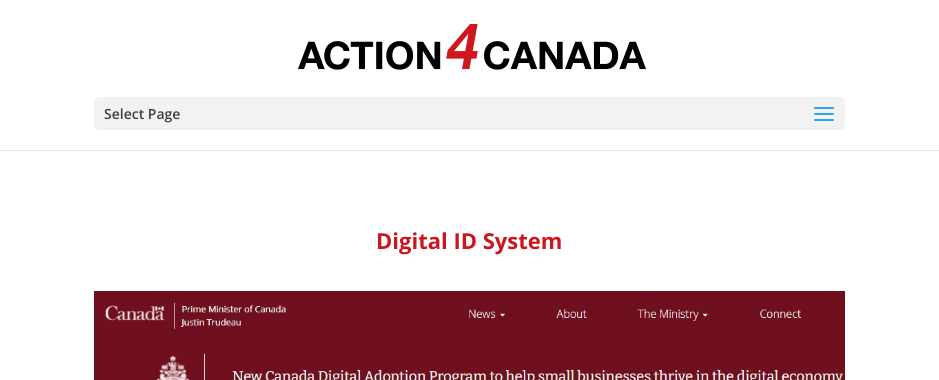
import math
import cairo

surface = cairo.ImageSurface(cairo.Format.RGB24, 939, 380)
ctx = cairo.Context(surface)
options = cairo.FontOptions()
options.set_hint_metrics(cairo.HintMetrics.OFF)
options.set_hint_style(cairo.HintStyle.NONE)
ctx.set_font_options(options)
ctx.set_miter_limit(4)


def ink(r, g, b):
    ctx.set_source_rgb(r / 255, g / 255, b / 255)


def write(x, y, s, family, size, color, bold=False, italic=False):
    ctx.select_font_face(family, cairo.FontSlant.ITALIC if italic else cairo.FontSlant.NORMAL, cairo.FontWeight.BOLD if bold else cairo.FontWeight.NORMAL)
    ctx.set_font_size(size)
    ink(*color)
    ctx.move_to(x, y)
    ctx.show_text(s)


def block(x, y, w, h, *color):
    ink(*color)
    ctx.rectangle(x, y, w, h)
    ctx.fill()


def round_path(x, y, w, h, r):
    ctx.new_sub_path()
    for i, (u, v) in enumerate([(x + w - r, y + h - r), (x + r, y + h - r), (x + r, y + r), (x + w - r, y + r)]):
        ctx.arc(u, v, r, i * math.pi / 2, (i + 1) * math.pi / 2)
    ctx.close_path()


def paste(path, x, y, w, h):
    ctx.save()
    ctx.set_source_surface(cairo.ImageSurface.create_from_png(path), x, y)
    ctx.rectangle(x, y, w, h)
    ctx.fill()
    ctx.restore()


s1 = dict(family="Open Sans SemiBold", size=14, color=(62, 62, 62))
s2 = dict(family="Open Sans", size=22, color=(202, 23, 29), bold=True)

ink(255, 255, 255)
ctx.paint()
block(0, 150, 939, 1, 230, 230, 230)
paste("pic1.png", 298, 24, 348, 46)
ink(242, 242, 242)
round_path(94, 97, 751, 33, 5)
ctx.fill()
write(104, 119, "Select Page", **s1)
paste("pic2.png", 814, 107, 20, 14)
write(376, 249, "Digital ID System", **s2)
paste("pic3.png", 94, 291, 751, 89)
surface.write_to_png("screenshot.png")
